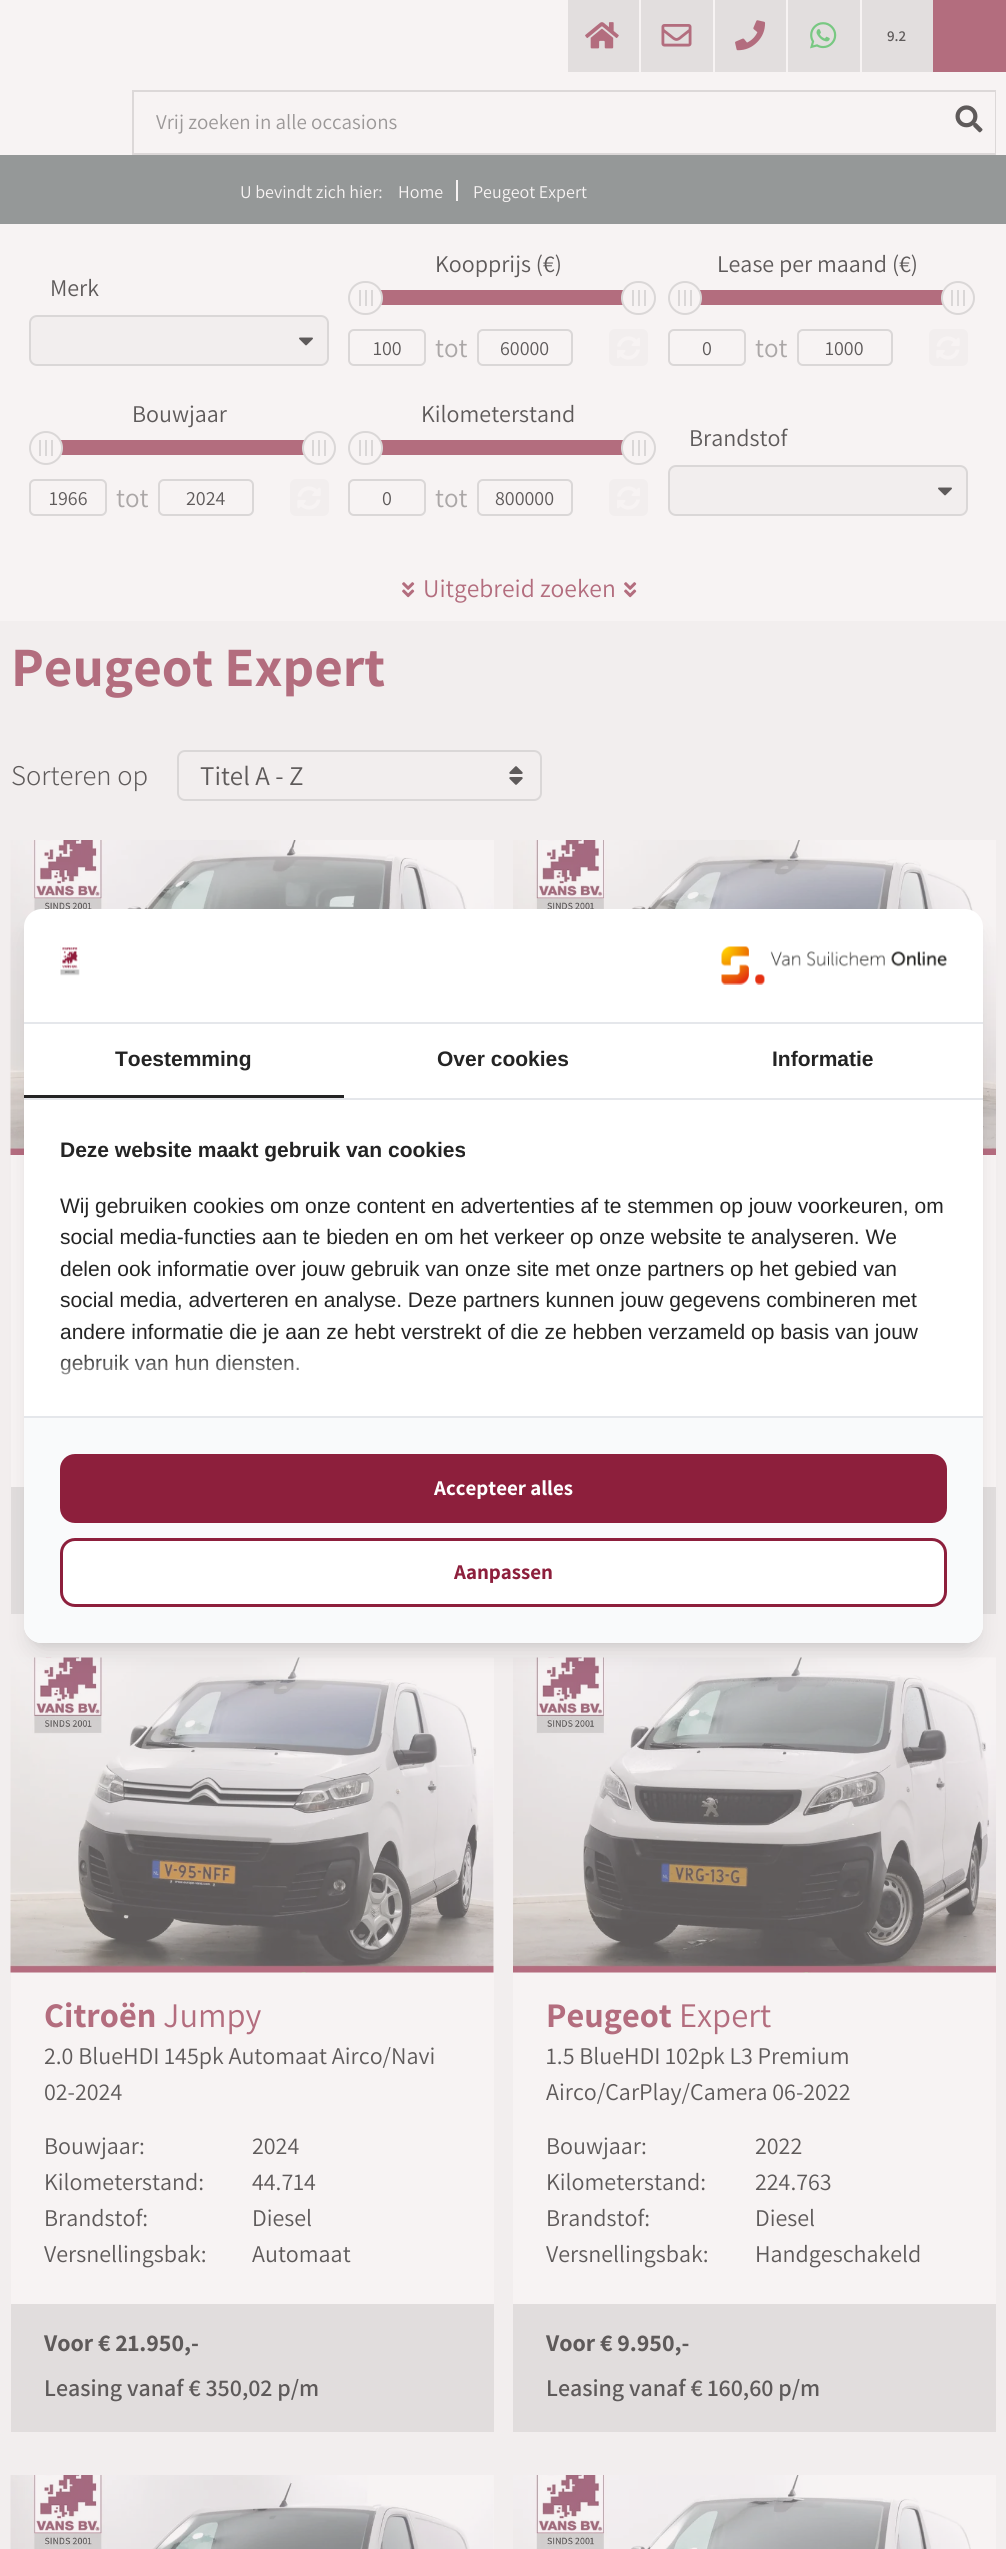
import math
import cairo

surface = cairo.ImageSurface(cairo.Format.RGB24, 1006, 2549)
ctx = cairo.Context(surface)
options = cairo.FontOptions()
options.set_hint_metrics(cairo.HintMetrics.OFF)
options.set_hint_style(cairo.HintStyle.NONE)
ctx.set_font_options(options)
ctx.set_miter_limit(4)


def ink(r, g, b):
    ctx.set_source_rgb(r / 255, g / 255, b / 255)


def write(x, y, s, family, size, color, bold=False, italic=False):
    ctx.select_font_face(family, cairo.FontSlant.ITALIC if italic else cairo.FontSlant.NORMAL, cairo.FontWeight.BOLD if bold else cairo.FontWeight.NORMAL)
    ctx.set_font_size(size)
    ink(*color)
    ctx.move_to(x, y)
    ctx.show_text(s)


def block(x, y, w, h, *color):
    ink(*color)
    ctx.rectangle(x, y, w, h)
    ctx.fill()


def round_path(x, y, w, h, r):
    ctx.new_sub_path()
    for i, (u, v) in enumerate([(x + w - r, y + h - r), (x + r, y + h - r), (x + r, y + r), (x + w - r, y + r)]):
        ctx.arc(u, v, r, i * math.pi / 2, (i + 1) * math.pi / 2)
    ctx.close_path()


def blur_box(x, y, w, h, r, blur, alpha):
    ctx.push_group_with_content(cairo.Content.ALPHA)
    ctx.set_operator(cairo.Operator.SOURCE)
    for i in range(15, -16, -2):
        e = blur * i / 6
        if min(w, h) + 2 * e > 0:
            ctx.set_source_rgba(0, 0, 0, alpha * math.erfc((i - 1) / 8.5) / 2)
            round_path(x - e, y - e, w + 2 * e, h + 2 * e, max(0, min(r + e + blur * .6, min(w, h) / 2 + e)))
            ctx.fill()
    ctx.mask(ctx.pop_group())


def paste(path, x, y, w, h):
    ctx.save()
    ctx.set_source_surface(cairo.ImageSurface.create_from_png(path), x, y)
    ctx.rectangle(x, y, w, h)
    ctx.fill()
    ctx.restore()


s1 = dict(family="Assistant SemiBold", size=15, color=(94, 90, 90))
s2 = dict(family="Assistant", size=21, color=(155, 152, 152))
s3 = dict(family="Assistant", size=18, color=(247, 243, 243))
s4 = dict(family="Assistant", size=24, color=(94, 90, 90))
s5 = dict(family="Assistant", size=20, color=(94, 90, 90))
s6 = dict(family="Assistant", size=27, color=(171, 167, 167))
s7 = dict(family="Assistant", size=25.5, color=(179, 109, 126))
s8 = dict(family="Assistant", size=55.5, color=(179, 109, 126), bold=True)
s9 = dict(family="Assistant Light", size=28.5, color=(94, 90, 90))
s10 = dict(family="Assistant", size=27, color=(94, 90, 90))
s11 = dict(family="Assistant", size=34.5, color=(179, 109, 126), bold=True)
s12 = dict(family="Assistant", size=34.5, color=(179, 109, 126))
s13 = dict(family="Assistant", size=24, color=(94, 90, 90), bold=True)
s14 = dict(family="Assistant SemiBold", size=24, color=(94, 90, 90))
s15 = dict(family="Liberation Sans", size=21, color=(36, 36, 36), bold=True)
s16 = dict(family="Liberation Sans", size=21, color=(36, 36, 36))
s17 = dict(family="Assistant", size=21, color=(255, 255, 255), bold=True)
s18 = dict(family="Assistant", size=21, color=(141, 31, 60), bold=True)

ink(247, 243, 243)
ctx.paint()
block(568, 0, 71, 72, 226, 222, 222)
paste("pic1.png", 585, 22, 34, 27)
block(641, 0, 72, 72, 226, 222, 222)
paste("pic2.png", 661, 24, 31, 23)
block(715, 0, 71, 72, 226, 222, 222)
paste("pic3.png", 735, 20, 31, 31)
block(788, 0, 72, 72, 226, 222, 222)
paste("pic4.png", 810, 22, 27, 27)
block(862, 0, 71, 72, 226, 222, 222)
write(887, 41, "9.2", **s1)
block(933, 0, 73, 72, 179, 109, 126)
ctx.rectangle(133, 91, 862, 63)
ink(220, 216, 216)
ctx.stroke()
write(156, 129, "Vrij zoeken in alle occasions", **s2)
block(994, 92, 1, 61, 247, 243, 243)
paste("pic5.png", 955, 105, 28, 28)
block(0, 155, 1006, 69, 149, 152, 152)
write(240, 198, "U bevindt zich hier:", **s3)
write(398, 198, "Home", **s3)
block(456, 180, 2, 21, 247, 243, 243)
write(473, 198, "Peugeot Expert", **s3)
write(50, 296, "Merk", **s4)
ink(242, 238, 238)
round_path(30, 316, 298, 49, 7)
ctx.fill_preserve()
ink(218, 215, 215)
ctx.stroke()
paste("pic6.png", 299, 337, 14, 9)
write(435, 272, "Koopprijs (€)", **s4)
block(381, 290, 242, 15, 179, 109, 126)
ink(247, 243, 243)
round_path(349, 282, 33, 32, 16)
ctx.fill_preserve()
ink(218, 215, 215)
ctx.stroke()
block(359, 290, 2, 16, 218, 215, 215)
block(365, 290, 2, 16, 218, 215, 215)
block(371, 290, 2, 16, 218, 215, 215)
ink(247, 243, 243)
round_path(622, 282, 33, 32, 16)
ctx.fill_preserve()
ink(218, 215, 215)
ctx.stroke()
block(632, 290, 2, 16, 218, 215, 215)
block(638, 290, 2, 16, 218, 215, 215)
block(644, 290, 2, 16, 218, 215, 215)
round_path(349, 330, 76, 35, 5)
ctx.stroke()
write(373, 355, "100", **s5)
write(435, 357, "tot", **s6)
round_path(478, 330, 94, 35, 5)
ink(218, 215, 215)
ctx.stroke()
write(500, 355, "60000", **s5)
ink(242, 238, 238)
round_path(609, 329, 39, 37, 6)
ctx.fill()
paste("pic7.png", 617, 336, 23, 24)
write(717, 272, "Lease per maand (€)", **s4)
block(700, 290, 243, 15, 179, 109, 126)
ink(247, 243, 243)
ctx.new_path()
ctx.arc(685, 298, 16, 0, 2 * math.pi)
ctx.fill_preserve()
ink(218, 215, 215)
ctx.stroke()
block(678, 290, 2, 16, 218, 215, 215)
block(684, 290, 2, 16, 218, 215, 215)
block(690, 290, 2, 16, 218, 215, 215)
ink(247, 243, 243)
ctx.arc(958, 298, 16, 0, 2 * math.pi)
ctx.fill_preserve()
ink(218, 215, 215)
ctx.stroke()
block(951, 290, 2, 16, 218, 215, 215)
block(957, 290, 2, 16, 218, 215, 215)
block(963, 290, 2, 16, 218, 215, 215)
round_path(669, 330, 76, 35, 5)
ctx.stroke()
write(702, 355, "0", **s5)
write(755, 357, "tot", **s6)
round_path(798, 330, 94, 35, 5)
ink(218, 215, 215)
ctx.stroke()
write(825, 355, "1000", **s5)
ink(242, 238, 238)
round_path(929, 329, 39, 37, 6)
ctx.fill()
paste("pic8.png", 936, 336, 24, 24)
write(132, 422, "Bouwjaar", **s4)
block(61, 440, 243, 15, 179, 109, 126)
ink(247, 243, 243)
ctx.new_path()
ctx.arc(46, 448, 16, 0, 2 * math.pi)
ctx.fill_preserve()
ink(218, 215, 215)
ctx.stroke()
block(39, 440, 2, 16, 218, 215, 215)
block(45, 440, 2, 16, 218, 215, 215)
block(51, 440, 2, 16, 218, 215, 215)
ink(247, 243, 243)
ctx.arc(319, 448, 16, 0, 2 * math.pi)
ctx.fill_preserve()
ink(218, 215, 215)
ctx.stroke()
block(312, 440, 2, 16, 218, 215, 215)
block(318, 440, 2, 16, 218, 215, 215)
block(324, 440, 2, 16, 218, 215, 215)
round_path(30, 480, 76, 35, 5)
ctx.stroke()
write(49, 505, "1966", **s5)
write(116, 507, "tot", **s6)
round_path(159, 480, 94, 35, 5)
ink(218, 215, 215)
ctx.stroke()
write(186, 505, "2024", **s5)
ink(242, 238, 238)
round_path(290, 479, 39, 37, 6)
ctx.fill()
paste("pic8.png", 297, 486, 24, 24)
write(421, 422, "Kilometerstand", **s4)
block(381, 440, 242, 15, 179, 109, 126)
ink(247, 243, 243)
round_path(349, 432, 33, 32, 16)
ctx.fill_preserve()
ink(218, 215, 215)
ctx.stroke()
block(359, 440, 2, 16, 218, 215, 215)
block(365, 440, 2, 16, 218, 215, 215)
block(371, 440, 2, 16, 218, 215, 215)
ink(247, 243, 243)
round_path(622, 432, 33, 32, 16)
ctx.fill_preserve()
ink(218, 215, 215)
ctx.stroke()
block(632, 440, 2, 16, 218, 215, 215)
block(638, 440, 2, 16, 218, 215, 215)
block(644, 440, 2, 16, 218, 215, 215)
round_path(349, 480, 76, 35, 5)
ctx.stroke()
write(382, 505, "0", **s5)
write(435, 507, "tot", **s6)
round_path(478, 480, 94, 35, 5)
ink(218, 215, 215)
ctx.stroke()
write(495, 505, "800000", **s5)
ink(242, 238, 238)
round_path(609, 479, 39, 37, 6)
ctx.fill()
paste("pic7.png", 617, 486, 23, 24)
write(689, 446, "Brandstof", **s4)
ink(242, 238, 238)
round_path(669, 466, 298, 49, 7)
ctx.fill_preserve()
ink(218, 215, 215)
ctx.stroke()
paste("pic6.png", 938, 487, 14, 9)
paste("pic9.png", 402, 582, 13, 16)
write(423, 597, "Uitgebreid zoeken", **s7)
paste("pic9.png", 624, 582, 13, 16)
block(0, 621, 1006, 1928, 242, 238, 238)
write(11, 686, "Peugeot Expert", **s8)
write(11, 785, "Sorteren op", **s9)
round_path(178, 751, 363, 49, 7)
ink(218, 215, 215)
ctx.stroke()
write(200, 785, "Titel A - Z", **s10)
paste("pic10.png", 509, 766, 14, 19)
block(11, 840, 483, 647, 247, 243, 243)
paste("pic11.png", 10, 840, 484, 315)
block(11, 1487, 13, 127, 225, 221, 221)
block(983, 1155, 13, 332, 247, 243, 243)
paste("pic12.png", 513, 840, 483, 315)
block(983, 1487, 13, 127, 225, 221, 221)
block(11, 1658, 483, 646, 247, 243, 243)
paste("pic13.png", 10, 1657, 484, 316)
write(44, 2027, "Citroën", **s11)
write(163, 2027, "Jumpy", **s12)
write(44, 2064, "2.0 BlueHDI 145pk Automaat Airco/Navi", **s4)
write(44, 2100, "02-2024", **s4)
write(44, 2154, "Bouwjaar:", **s4)
write(252, 2154, "2024", **s4)
write(44, 2190, "Kilometerstand:", **s4)
write(252, 2190, "44.714", **s4)
write(44, 2226, "Brandstof:", **s4)
write(252, 2226, "Diesel", **s4)
write(44, 2262, "Versnellingsbak:", **s4)
write(252, 2262, "Automaat", **s4)
block(11, 2304, 483, 128, 225, 221, 221)
write(44, 2351, "Voor € 21.950,-", **s13)
write(44, 2396, "Leasing vanaf € 350,02 p/m", **s14)
block(513, 1972, 483, 332, 247, 243, 243)
paste("pic14.png", 513, 1657, 483, 316)
write(546, 2027, "Peugeot", **s11)
write(679, 2027, "Expert", **s12)
write(546, 2064, "1.5 BlueHDI 102pk L3 Premium", **s4)
write(546, 2100, "Airco/CarPlay/Camera 06-2022", **s4)
write(546, 2154, "Bouwjaar:", **s4)
write(755, 2154, "2022", **s4)
write(546, 2190, "Kilometerstand:", **s4)
write(755, 2190, "224.763", **s4)
write(546, 2226, "Brandstof:", **s4)
write(755, 2226, "Diesel", **s4)
write(546, 2262, "Versnellingsbak:", **s4)
write(755, 2262, "Handgeschakeld", **s4)
block(513, 2304, 483, 128, 225, 221, 221)
write(546, 2351, "Voor € 9.950,-", **s13)
write(546, 2396, "Leasing vanaf € 160,60 p/m", **s14)
block(493, 2475, 1, 74, 247, 243, 243)
paste("pic15.png", 10, 2475, 484, 74)
block(971, 2475, 25, 74, 247, 243, 243)
paste("pic16.png", 513, 2475, 458, 74)
ink(0, 0, 0)
blur_box(30, 921, 947, 722, 12, 4.5, 0.1)
blur_box(29, 929, 949, 724, 14, 11, 0.1)
ink(255, 255, 255)
round_path(24, 909, 959, 734, 18)
ctx.fill()
block(24, 1022, 959, 2, 229, 231, 235)
paste("pic17.png", 60, 946, 20, 30)
paste("pic18.png", 721, 946, 226, 39)
block(24, 1098, 959, 2, 229, 231, 235)
block(24, 1095, 320, 3, 36, 36, 36)
write(115, 1066, "Toestemming", **s15)
write(437, 1066, "Over cookies", **s15)
write(772, 1066, "Informatie", **s15)
write(60, 1157, "Deze website maakt gebruik van cookies", **s15)
write(60, 1213, "Wij gebruiken cookies om onze content en advertenties af te stemmen op jouw voorkeuren, om", **s16)
write(60, 1244, "social media-functies aan te bieden en om het verkeer op onze website te analyseren. We", **s16)
write(60, 1276, "delen ook informatie over jouw gebruik van onze site met onze partners op het gebied van", **s16)
write(60, 1307, "social media, adverteren en analyse. Deze partners kunnen jouw gegevens combineren met", **s16)
write(60, 1339, "andere informatie die je aan ze hebt verstrekt of die ze hebben verzameld op basis van jouw", **s16)
write(60, 1370, "gebruik van hun diensten.", **s16)
ctx.save()
round_path(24, 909, 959, 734, 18)
ctx.clip()
ink(255, 255, 255)
blur_box(12, 1374, 983, 251, 0, 15, 1)
ctx.restore()
ink(249, 250, 251)
ctx.new_path()
ctx.move_to(24, 1416)
ctx.line_to(983, 1416)
ctx.line_to(983, 1625)
ctx.curve_to(983, 1635, 975, 1643, 965, 1643)
ctx.line_to(42, 1643)
ctx.curve_to(32, 1643, 24, 1635, 24, 1625)
ctx.close_path()
ctx.fill()
block(24, 1416, 959, 2, 229, 231, 235)
ink(141, 31, 60)
round_path(61.5, 1455.5, 884, 66, 13.5)
ctx.fill_preserve()
ctx.set_line_width(3)
ctx.stroke()
write(434, 1495, "Accepteer alles", **s17)
round_path(61.5, 1539.5, 884, 66, 13.5)
ctx.fill_preserve()
ink(141, 31, 60)
ctx.stroke()
write(454, 1579, "Aanpassen", **s18)
surface.write_to_png("screenshot.png")
